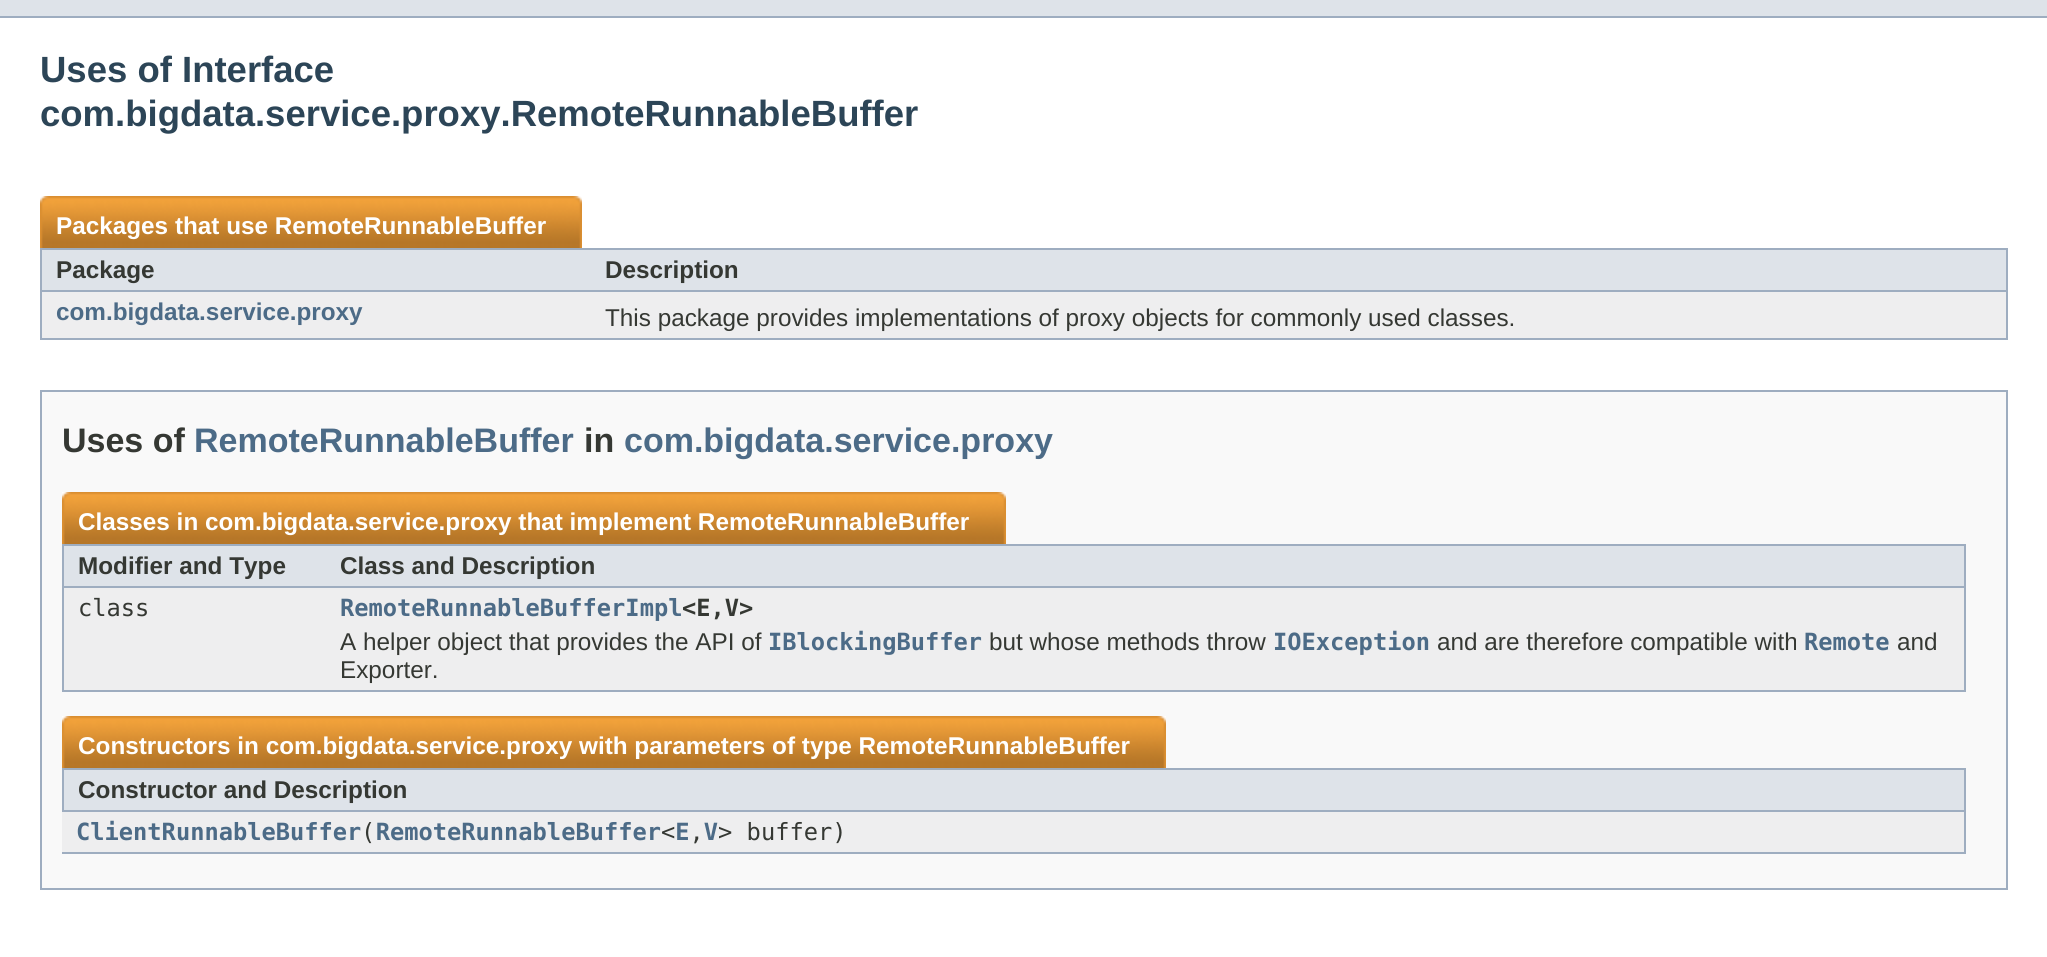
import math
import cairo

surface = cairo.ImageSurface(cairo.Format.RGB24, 2047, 957)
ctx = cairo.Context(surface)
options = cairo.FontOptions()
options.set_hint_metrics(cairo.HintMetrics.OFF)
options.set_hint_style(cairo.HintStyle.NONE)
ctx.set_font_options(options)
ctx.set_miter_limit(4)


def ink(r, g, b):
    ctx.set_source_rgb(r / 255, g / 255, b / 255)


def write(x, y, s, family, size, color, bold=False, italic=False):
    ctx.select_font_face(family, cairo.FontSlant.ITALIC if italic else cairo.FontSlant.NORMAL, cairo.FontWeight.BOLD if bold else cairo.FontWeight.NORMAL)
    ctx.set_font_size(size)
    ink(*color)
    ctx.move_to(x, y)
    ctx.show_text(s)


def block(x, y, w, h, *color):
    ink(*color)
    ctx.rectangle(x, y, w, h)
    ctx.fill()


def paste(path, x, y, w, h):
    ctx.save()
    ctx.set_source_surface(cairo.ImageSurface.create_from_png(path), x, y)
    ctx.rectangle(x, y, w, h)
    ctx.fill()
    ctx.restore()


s1 = dict(family="Liberation Sans", size=36.5, color=(44, 69, 87), bold=True)
s2 = dict(family="Liberation Sans", size=24.3, color=(255, 255, 255), bold=True)
s3 = dict(family="Liberation Sans", size=24.3, color=(53, 56, 51), bold=True)
s4 = dict(family="Liberation Sans", size=24.3, color=(76, 107, 135), bold=True)
s5 = dict(family="Liberation Sans", size=24.3, color=(53, 56, 51))
s6 = dict(family="Liberation Sans", size=34, color=(53, 56, 51), bold=True)
s7 = dict(family="Liberation Sans", size=34, color=(76, 107, 135), bold=True)
s8 = dict(family="DejaVu Sans Mono", size=23.7, color=(53, 56, 51))
s9 = dict(family="DejaVu Sans Mono", size=23.7, color=(76, 107, 135), bold=True)
s10 = dict(family="DejaVu Sans Mono", size=23.7, color=(53, 56, 51), bold=True)

ink(255, 255, 255)
ctx.paint()
block(0, 0, 2047, 16, 222, 227, 233)
block(0, 16, 2047, 2, 158, 173, 192)
write(40, 82, "Uses of Interface", **s1)
write(40, 126, "com.bigdata.service.proxy.RemoteRunnableBuffer", **s1)
block(40, 338, 1968, 2, 158, 173, 192)
paste("pic1.png", 40, 196, 506, 52)
write(56, 234, "Packages that use RemoteRunnableBuffer", **s2)
paste("pic2.png", 546, 196, 36, 52)
block(42, 250, 1964, 40, 222, 227, 233)
block(40, 248, 1968, 2, 158, 173, 192)
block(40, 290, 552, 2, 158, 173, 192)
block(40, 248, 2, 90, 158, 173, 192)
write(56, 278, "Package", **s3)
block(2006, 248, 2, 90, 158, 173, 192)
block(592, 290, 1416, 2, 158, 173, 192)
write(605, 278, "Description", **s3)
block(42, 292, 1964, 46, 238, 238, 239)
write(56, 320, "com.bigdata.service.proxy", **s4)
write(605, 326, "This package provides implementations of proxy objects for commonly used classes.", **s5)
ink(249, 249, 249)
ctx.rectangle(41, 391, 1966, 498)
ctx.fill_preserve()
ink(158, 173, 192)
ctx.stroke()
write(62, 452, "Uses of", **s6)
write(194, 452, "RemoteRunnableBuffer", **s7)
write(584, 452, "in", **s6)
write(624, 452, "com.bigdata.service.proxy", **s7)
block(62, 690, 1904, 2, 158, 173, 192)
paste("pic3.png", 62, 492, 908, 52)
write(78, 530, "Classes in com.bigdata.service.proxy that implement RemoteRunnableBuffer", **s2)
paste("pic2.png", 970, 492, 36, 52)
block(64, 546, 1900, 40, 222, 227, 233)
block(62, 544, 1904, 2, 158, 173, 192)
block(62, 586, 264, 2, 158, 173, 192)
block(62, 544, 2, 146, 158, 173, 192)
write(78, 574, "Modifier and Type", **s3)
block(1964, 544, 2, 146, 158, 173, 192)
block(326, 586, 1640, 2, 158, 173, 192)
write(340, 574, "Class and Description", **s3)
block(64, 588, 1900, 102, 238, 238, 239)
write(78, 616, "class", **s8)
write(340, 616, "RemoteRunnableBufferImpl", **s9)
write(682, 616, "<E,V>", **s10)
write(340, 650, "A helper object that provides the API of", **s5)
write(768, 650, "IBlockingBuffer", **s9)
write(989, 650, "but whose methods throw", **s5)
write(1273, 650, "IOException", **s9)
write(1437, 650, "and are therefore compatible with", **s5)
write(1804, 650, "Remote", **s9)
write(1897, 650, "and", **s5)
write(340, 678, "Exporter.", **s5)
block(62, 852, 1904, 2, 158, 173, 192)
paste("pic4.png", 62, 716, 1068, 52)
write(78, 754, "Constructors in com.bigdata.service.proxy with parameters of type RemoteRunnableBuffer", **s2)
paste("pic2.png", 1130, 716, 36, 52)
ink(222, 227, 233)
ctx.rectangle(63, 769, 1902, 42)
ctx.fill_preserve()
ink(158, 173, 192)
ctx.stroke()
write(78, 798, "Constructor and Description", **s3)
block(62, 812, 1902, 40, 238, 238, 239)
block(1964, 812, 2, 40, 158, 173, 192)
write(76, 840, "ClientRunnableBuffer RemoteRunnableBuffer E V", **s9)
write(361, 840, "(", **s8)
write(661, 840, "< , > buffer)", **s8)
surface.write_to_png("screenshot.png")
